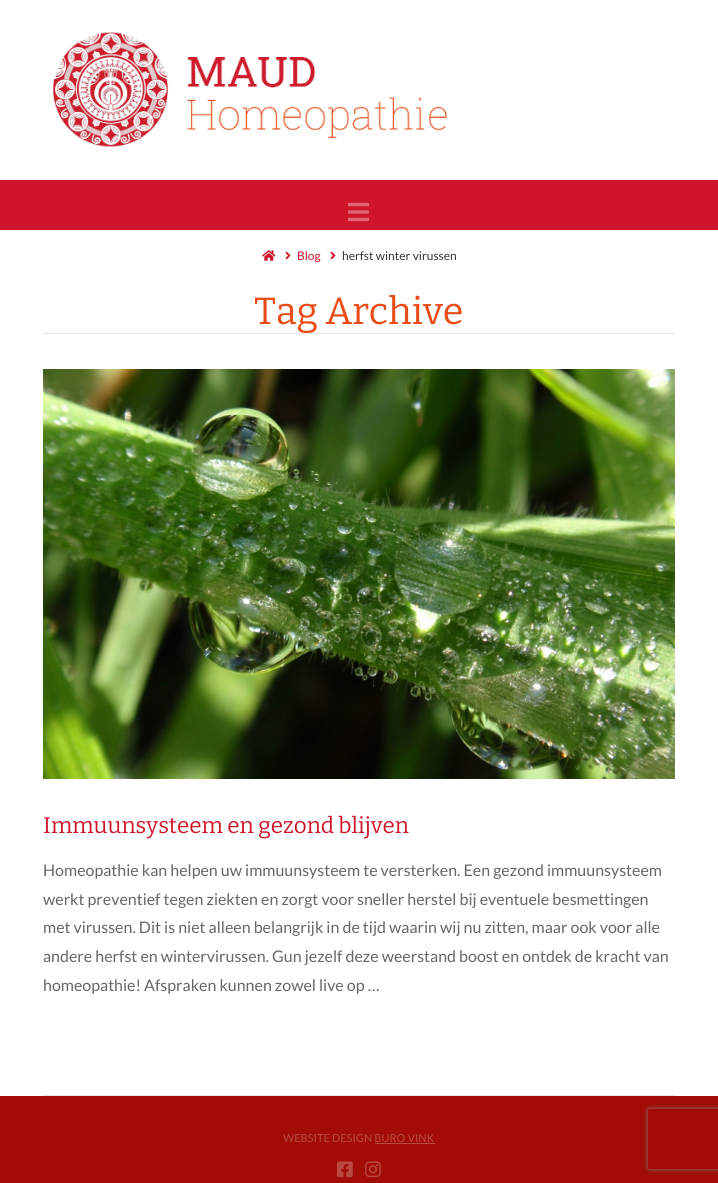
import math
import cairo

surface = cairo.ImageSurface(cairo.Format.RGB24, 718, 1183)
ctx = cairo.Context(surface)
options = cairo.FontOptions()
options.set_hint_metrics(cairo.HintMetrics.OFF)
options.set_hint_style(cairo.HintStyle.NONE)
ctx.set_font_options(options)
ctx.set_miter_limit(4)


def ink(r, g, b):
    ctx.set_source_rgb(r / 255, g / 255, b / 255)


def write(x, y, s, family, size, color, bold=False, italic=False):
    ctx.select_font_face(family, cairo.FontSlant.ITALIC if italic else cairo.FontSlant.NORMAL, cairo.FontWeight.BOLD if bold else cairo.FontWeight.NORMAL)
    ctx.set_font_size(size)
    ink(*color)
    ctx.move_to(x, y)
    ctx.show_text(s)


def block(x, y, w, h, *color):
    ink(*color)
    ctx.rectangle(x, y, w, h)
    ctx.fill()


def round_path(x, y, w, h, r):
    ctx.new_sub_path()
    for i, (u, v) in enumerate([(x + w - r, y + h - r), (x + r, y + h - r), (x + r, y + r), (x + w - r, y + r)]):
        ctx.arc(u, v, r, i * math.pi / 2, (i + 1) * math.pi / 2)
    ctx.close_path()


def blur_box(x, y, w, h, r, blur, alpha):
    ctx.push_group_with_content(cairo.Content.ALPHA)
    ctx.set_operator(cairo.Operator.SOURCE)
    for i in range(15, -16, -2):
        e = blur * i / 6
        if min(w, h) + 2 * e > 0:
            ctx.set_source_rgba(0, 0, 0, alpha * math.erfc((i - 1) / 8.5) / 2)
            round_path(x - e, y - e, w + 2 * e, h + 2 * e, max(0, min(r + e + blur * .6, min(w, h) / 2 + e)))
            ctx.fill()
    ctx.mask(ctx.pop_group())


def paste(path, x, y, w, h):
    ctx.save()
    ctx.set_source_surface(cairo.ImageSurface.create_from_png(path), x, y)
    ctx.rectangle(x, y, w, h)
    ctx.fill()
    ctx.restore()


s1 = dict(family="Lato", size=12, color=(206, 21, 41))
s2 = dict(family="Lato", size=12, color=(51, 51, 51))
s3 = dict(family="Bitter Thin", size=37.75, color=(233, 76, 22))
s4 = dict(family="Bitter Thin", size=22.4, color=(206, 21, 41))
s5 = dict(family="Lato", size=16, color=(102, 102, 102))
s6 = dict(family="Lato", size=11, color=(185, 73, 67))

ink(255, 255, 255)
ctx.paint()
paste("pic1.png", 53, 31, 394, 116)
block(0, 180, 718, 50, 206, 21, 41)
paste("pic2.png", 348, 202, 21, 20)
paste("pic3.png", 262, 250, 14, 11)
paste("pic4.png", 285, 251, 6, 9)
write(297, 260, "Blog", **s1)
paste("pic4.png", 330, 251, 6, 9)
write(342, 260, "herfst winter virussen", **s2)
write(254, 324, "Tag Archive", **s3)
block(43, 333, 632, 1, 230, 230, 230)
block(43, 1095, 632, 1, 230, 230, 230)
paste("pic5.png", 43, 369, 632, 410)
write(43, 833, "Immuunsysteem en gezond blijven", **s4)
write(43, 876, "Homeopathie kan helpen uw immuunsysteem te versterken. Een gezond immuunsysteem", **s5)
write(43, 905, "werkt preventief tegen ziekten en zorgt voor sneller herstel bij eventuele besmettingen", **s5)
write(43, 933, "met virussen. Dit is niet alleen belangrijk in de tijd waarin wij nu zitten, maar ook voor alle", **s5)
write(43, 962, "andere herfst en wintervirussen. Gun jezelf deze weerstand boost en ontdek de kracht van", **s5)
write(43, 991, "homeopathie! Afspraken kunnen zowel live op …", **s5)
block(0, 1096, 718, 87, 162, 12, 4)
write(283, 1142, "WEBSITE DESIGN BURO VINK", **s6)
block(375, 1143, 60, 1, 185, 73, 67)
paste("pic6.png", 337, 1161, 16, 17)
paste("pic7.png", 365, 1161, 16, 17)
ctx.save()
ctx.set_fill_rule(cairo.FillRule.EVEN_ODD)
ctx.new_path()
ctx.move_to(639, 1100)
ctx.line_to(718, 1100)
ctx.line_to(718, 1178)
ctx.line_to(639, 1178)
ctx.close_path()
ctx.move_to(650, 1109)
ctx.line_to(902, 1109)
ctx.curve_to(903, 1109, 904, 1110, 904, 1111)
ctx.line_to(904, 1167)
ctx.curve_to(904, 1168, 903, 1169, 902, 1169)
ctx.line_to(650, 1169)
ctx.curve_to(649, 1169, 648, 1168, 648, 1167)
ctx.line_to(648, 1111)
ctx.curve_to(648, 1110, 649, 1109, 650, 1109)
ctx.close_path()
ctx.clip()
ink(128, 128, 128)
blur_box(648, 1109, 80, 60, 2, 2.5, 1)
ctx.restore()
surface.write_to_png("screenshot.png")
